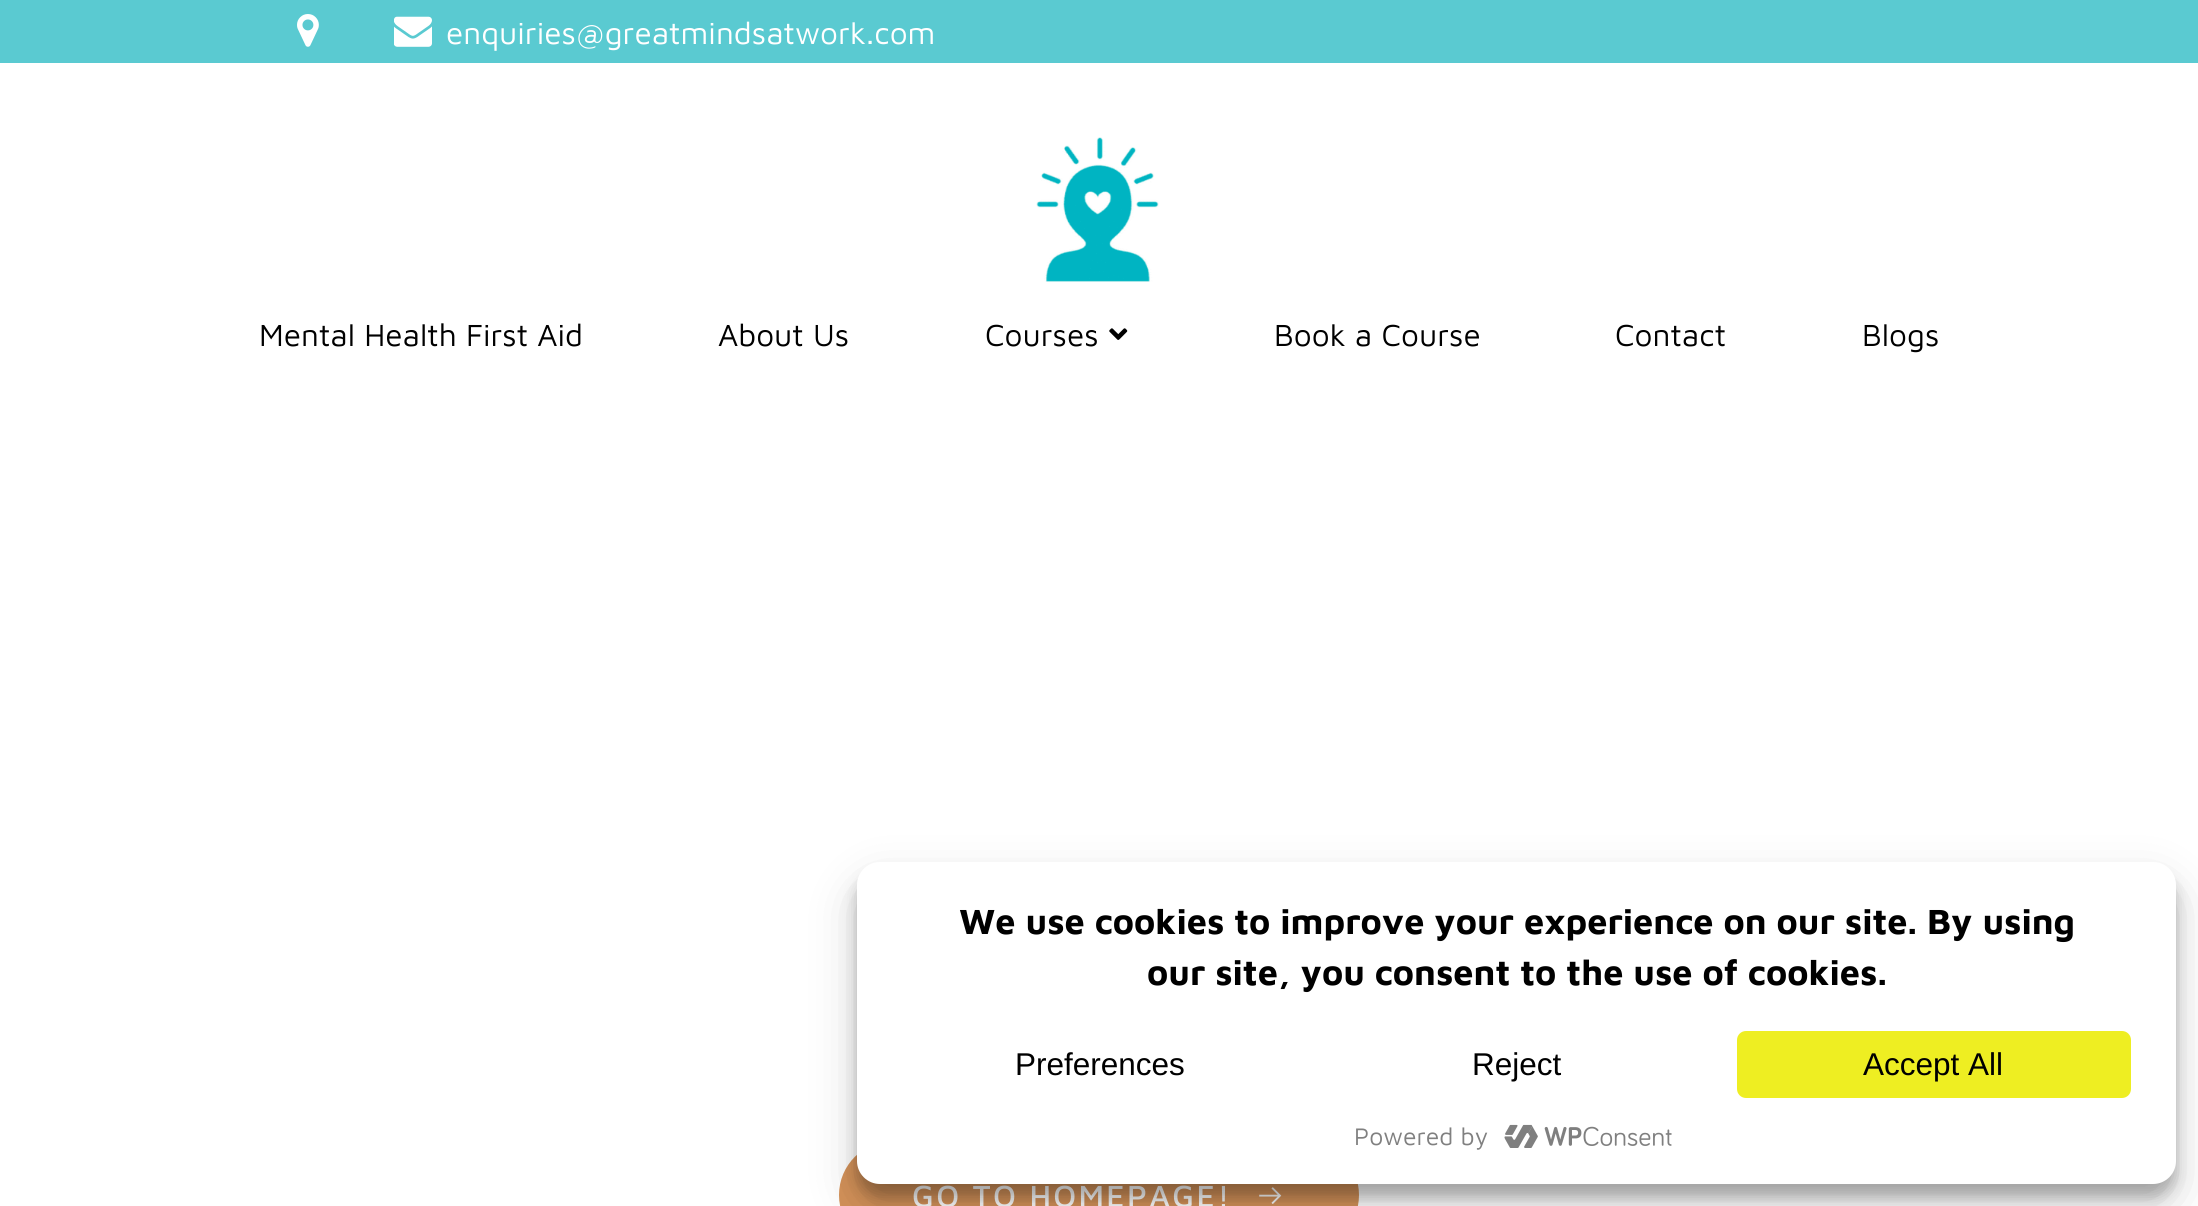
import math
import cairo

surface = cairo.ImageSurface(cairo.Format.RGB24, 2198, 1206)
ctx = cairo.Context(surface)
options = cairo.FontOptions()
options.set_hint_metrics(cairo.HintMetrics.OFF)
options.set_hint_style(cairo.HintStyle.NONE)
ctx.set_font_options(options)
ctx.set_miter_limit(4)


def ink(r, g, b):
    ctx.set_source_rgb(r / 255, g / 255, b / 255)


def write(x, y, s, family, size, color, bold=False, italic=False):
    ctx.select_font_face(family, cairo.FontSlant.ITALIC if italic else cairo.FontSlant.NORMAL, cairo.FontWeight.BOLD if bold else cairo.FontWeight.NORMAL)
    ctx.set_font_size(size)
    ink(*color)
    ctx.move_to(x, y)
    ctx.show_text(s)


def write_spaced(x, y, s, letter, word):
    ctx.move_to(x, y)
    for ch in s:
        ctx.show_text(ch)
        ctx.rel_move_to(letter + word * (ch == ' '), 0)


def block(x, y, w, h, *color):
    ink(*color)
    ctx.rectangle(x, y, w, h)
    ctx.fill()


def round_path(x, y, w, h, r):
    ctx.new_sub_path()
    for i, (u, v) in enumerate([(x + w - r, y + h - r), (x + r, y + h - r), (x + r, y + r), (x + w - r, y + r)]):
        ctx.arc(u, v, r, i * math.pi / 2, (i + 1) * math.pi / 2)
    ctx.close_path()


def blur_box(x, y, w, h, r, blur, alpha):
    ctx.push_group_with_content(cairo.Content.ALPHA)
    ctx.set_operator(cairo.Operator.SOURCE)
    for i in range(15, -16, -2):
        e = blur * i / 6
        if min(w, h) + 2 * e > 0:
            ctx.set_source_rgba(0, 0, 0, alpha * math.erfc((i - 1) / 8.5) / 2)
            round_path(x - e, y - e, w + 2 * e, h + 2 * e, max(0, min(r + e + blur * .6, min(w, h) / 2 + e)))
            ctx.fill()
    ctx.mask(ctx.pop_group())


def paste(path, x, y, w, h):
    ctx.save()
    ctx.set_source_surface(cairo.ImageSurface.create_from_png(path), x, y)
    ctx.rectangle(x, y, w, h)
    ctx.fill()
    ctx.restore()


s1 = dict(family="Maven Pro", size=31.5, color=(255, 255, 255))
s2 = dict(family="Maven Pro", size=31.5, color=(0, 0, 0))
s3 = dict(family="Maven Pro", size=36, color=(0, 0, 0), bold=True)
s4 = dict(family="Liberation Sans", size=31.5, color=(0, 0, 0))
s5 = dict(family="Maven Pro", size=24.75, color=(128, 128, 128))

ink(255, 255, 255)
ctx.paint()
block(0, 0, 2198, 63, 90, 202, 209)
paste("pic1.png", 297, 14, 22, 33)
paste("pic2.png", 394, 16, 38, 31)
write(446, 44, "enquiries@greatmindsatwork.com", **s1)
paste("pic3.png", 1036, 137, 123, 145)
write(259, 346, "Mental Health First Aid", **s2)
write(718, 346, "About Us", **s2)
write(985, 346, "Courses", **s2)
paste("pic4.png", 1109, 328, 19, 12)
write(1274, 346, "Book a Course", **s2)
write(1615, 346, "Contact", **s2)
write(1862, 346, "Blogs", **s2)
ink(212, 146, 89)
round_path(841.5, 1143.5, 515, 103, 51.5)
ctx.fill_preserve()
ctx.set_line_width(5)
ctx.stroke()
ctx.select_font_face("Maven Pro Medium")
ink(255, 255, 255)
write_spaced(912, 1207, "GO TO HOMEPAGE!", 2.25, 0)
paste("pic5.png", 1259, 1187, 23, 17)
ink(0, 0, 0)
blur_box(857, 875, 1319, 322, 23, 7, 0.23)
blur_box(857, 884, 1319, 322, 23, 22.5, 0.19)
ink(255, 255, 255)
round_path(857, 862, 1319, 322, 23)
ctx.fill()
write(959, 934, "We use cookies to improve your experience on our site. By using", **s3)
write(1147, 985, "our site, you consent to the use of cookies.", **s3)
write(1015, 1075, "Preferences", **s4)
write(1472, 1075, "Reject", **s4)
ink(238, 238, 34)
round_path(1737, 1031, 394, 67, 9)
ctx.fill()
write(1863, 1075, "Accept All", **s4)
write(1354, 1145, "Powered by", **s5)
paste("pic6.png", 1504, 1124, 168, 24)
surface.write_to_png("screenshot.png")
